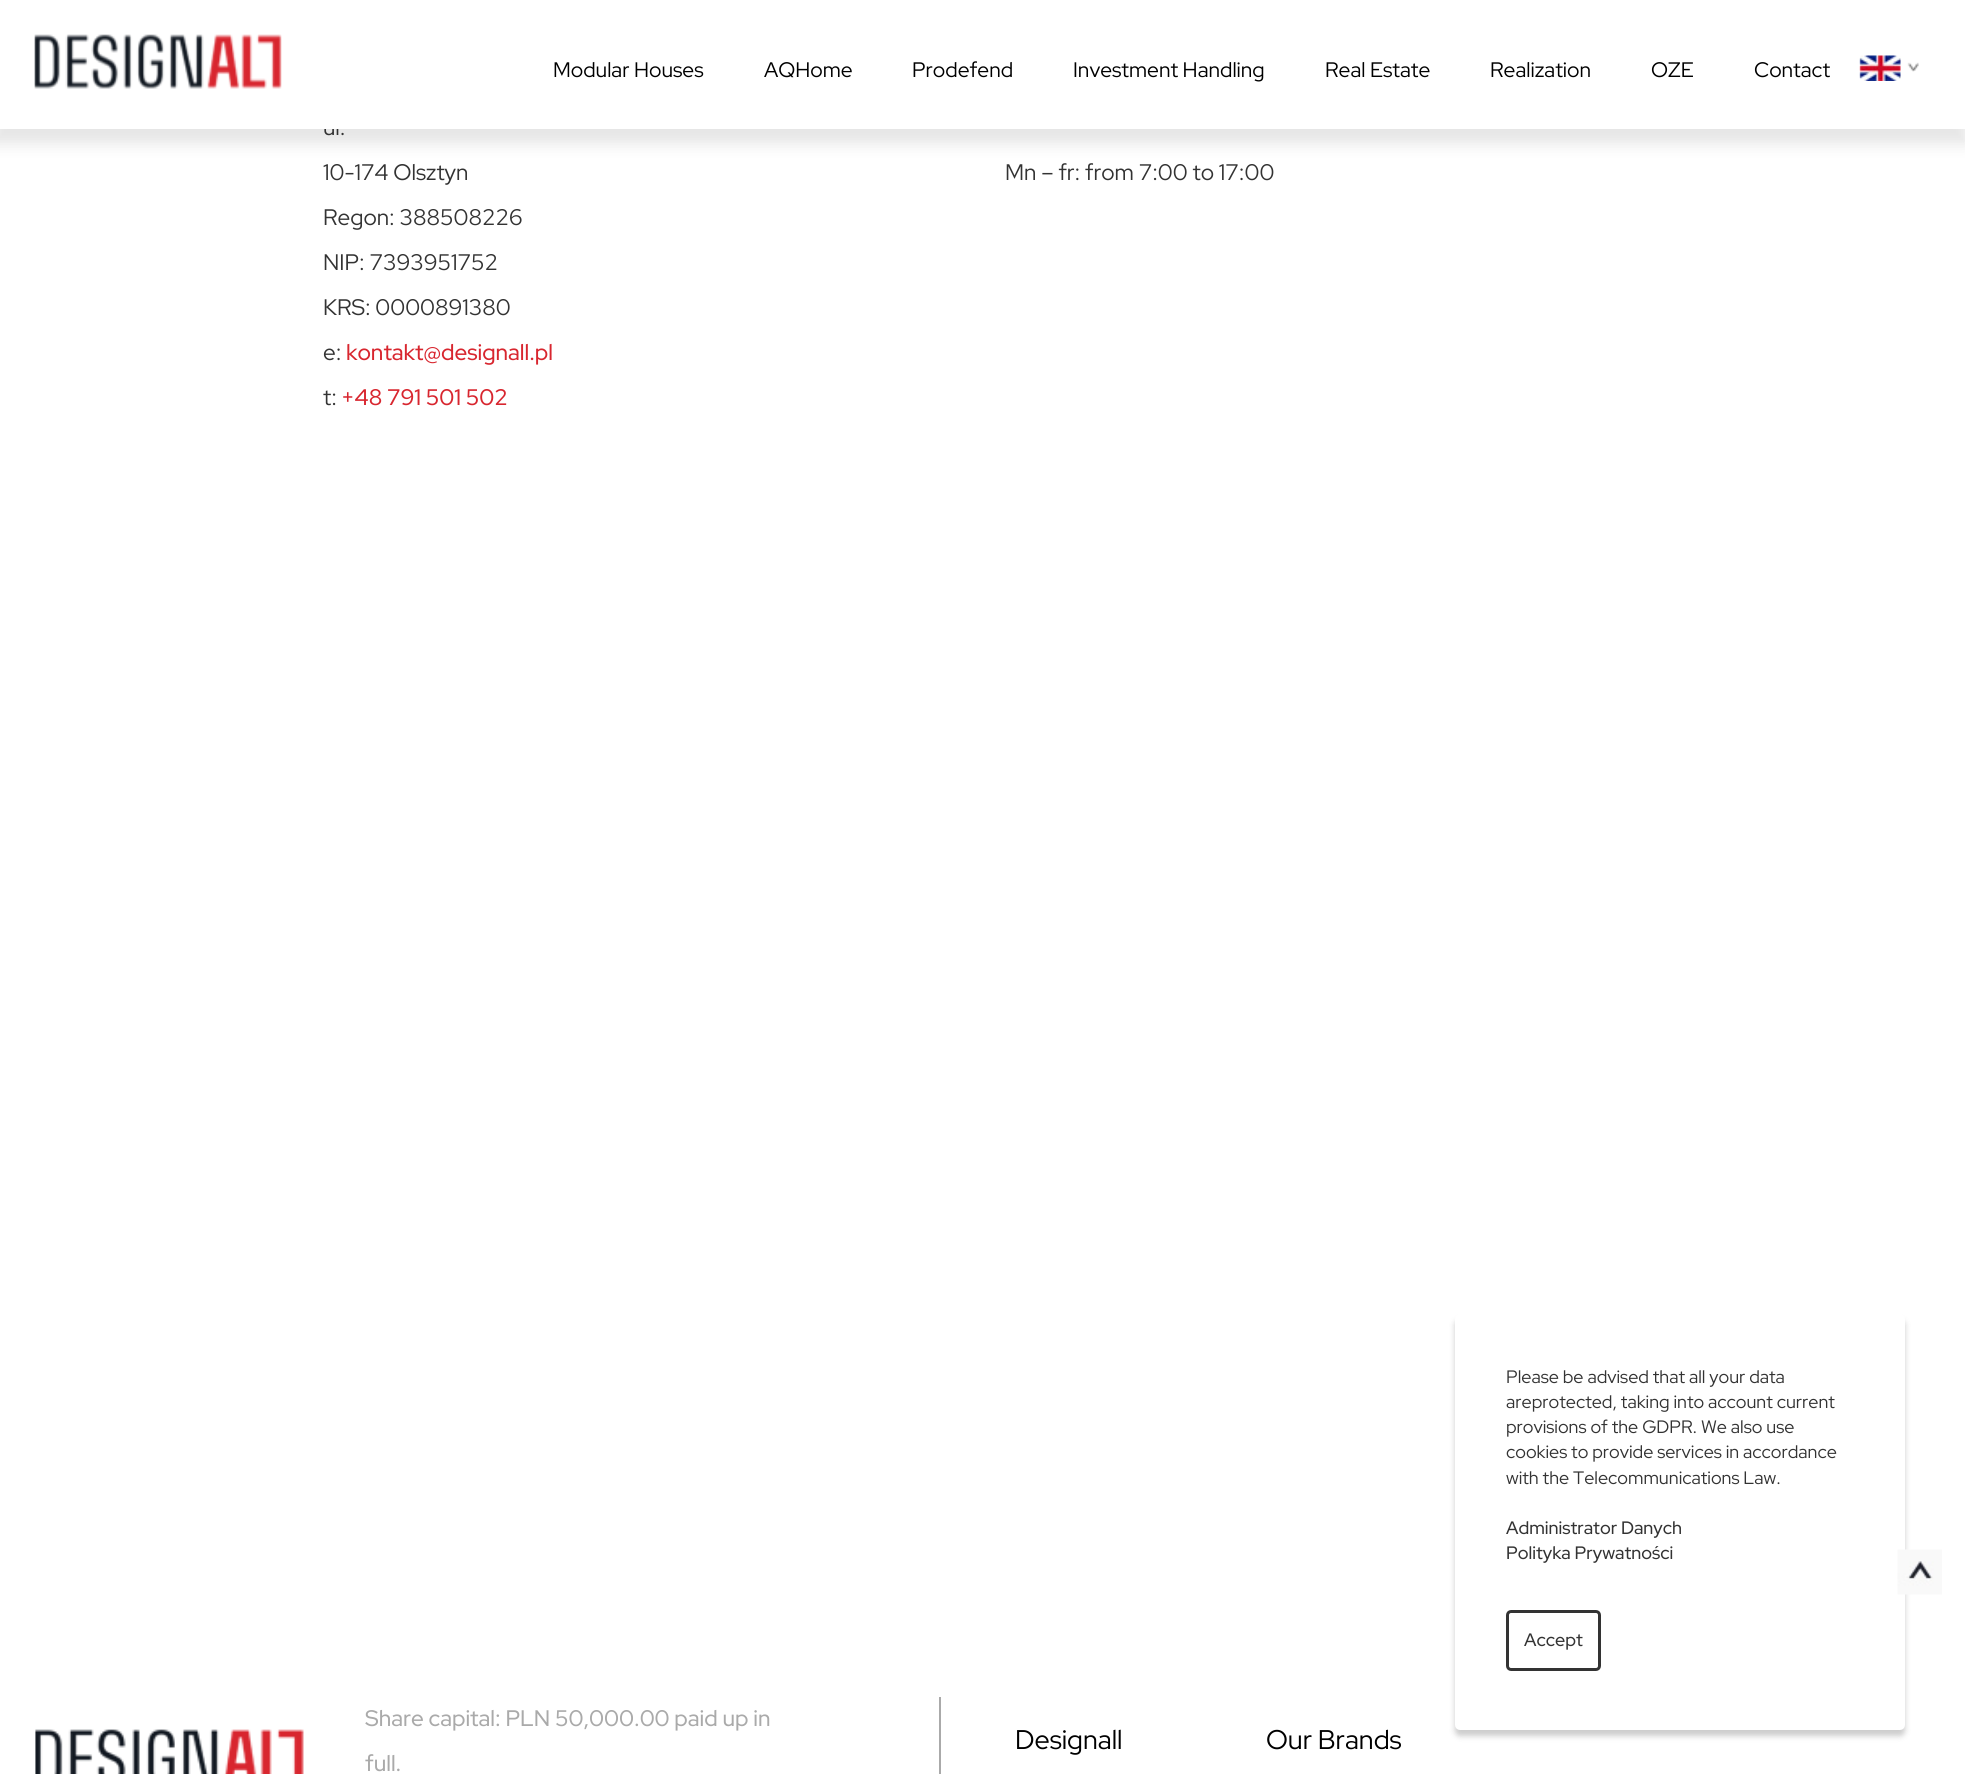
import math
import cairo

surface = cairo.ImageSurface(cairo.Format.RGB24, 1965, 1774)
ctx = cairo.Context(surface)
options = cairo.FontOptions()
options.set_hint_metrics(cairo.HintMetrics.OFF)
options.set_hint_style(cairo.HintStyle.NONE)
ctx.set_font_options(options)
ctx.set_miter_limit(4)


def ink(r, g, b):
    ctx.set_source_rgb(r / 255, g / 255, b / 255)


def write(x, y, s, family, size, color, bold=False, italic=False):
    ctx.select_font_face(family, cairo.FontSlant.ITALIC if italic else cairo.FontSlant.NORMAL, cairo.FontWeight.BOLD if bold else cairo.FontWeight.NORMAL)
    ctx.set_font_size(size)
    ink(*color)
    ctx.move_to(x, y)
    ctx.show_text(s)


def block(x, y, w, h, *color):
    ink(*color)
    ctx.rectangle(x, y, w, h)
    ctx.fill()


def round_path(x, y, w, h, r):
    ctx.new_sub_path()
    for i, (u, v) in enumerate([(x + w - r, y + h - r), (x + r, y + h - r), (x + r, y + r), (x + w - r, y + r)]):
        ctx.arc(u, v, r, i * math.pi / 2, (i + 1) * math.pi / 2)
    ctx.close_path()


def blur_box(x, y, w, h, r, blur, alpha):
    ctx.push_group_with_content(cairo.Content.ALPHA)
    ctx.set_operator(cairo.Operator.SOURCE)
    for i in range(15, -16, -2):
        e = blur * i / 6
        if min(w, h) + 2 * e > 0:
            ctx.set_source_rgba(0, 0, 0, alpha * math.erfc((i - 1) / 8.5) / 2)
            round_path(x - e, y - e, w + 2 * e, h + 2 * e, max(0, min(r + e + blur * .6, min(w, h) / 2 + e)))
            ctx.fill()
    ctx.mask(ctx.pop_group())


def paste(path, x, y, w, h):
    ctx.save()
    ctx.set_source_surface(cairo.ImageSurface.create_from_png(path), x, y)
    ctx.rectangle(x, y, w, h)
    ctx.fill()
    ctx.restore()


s1 = dict(family="Red Hat Display", size=22.5, color=(51, 51, 51))
s2 = dict(family="Red Hat Display", size=21, color=(0, 0, 0))
s3 = dict(family="Red Hat Display Medium", size=22.5, color=(216, 38, 47))
s4 = dict(family="Red Hat Display", size=18, color=(51, 51, 51))
s5 = dict(family="Red Hat Display Medium", size=18, color=(51, 51, 51))
s6 = dict(family="Red Hat Display Medium", size=22.5, color=(170, 170, 170))
s7 = dict(family="Red Hat Display", size=27, color=(0, 0, 0))

ink(255, 255, 255)
ctx.paint()
ink(0, 0, 0)
blur_box(-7, 6, 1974, 138, 0, 7.5, 0.1)
write(323, 135, "ul.", **s1)
block(0, 0, 1965, 129, 255, 255, 255)
paste("pic1.png", 34, 34, 248, 55)
write(553, 77, "Modular Houses", **s2)
write(764, 77, "AQHome", **s2)
write(912, 77, "Prodefend", **s2)
write(1073, 77, "Investment Handling", **s2)
write(1325, 77, "Real Estate", **s2)
write(1490, 77, "Realization", **s2)
write(1651, 77, "OZE", **s2)
write(1754, 77, "Contact", **s2)
paste("pic2.png", 1859, 55, 42, 26)
paste("pic3.png", 1907, 62, 12, 10)
write(323, 180, "10-174 Olsztyn", **s1)
write(323, 225, "Regon: 388508226", **s1)
write(323, 270, "NIP: 7393951752", **s1)
write(323, 315, "KRS: 0000891380", **s1)
write(323, 360, "e:", **s1)
write(346, 360, "kontakt@designall.pl", **s3)
write(323, 405, "t:", **s1)
write(341, 405, "+48 791 501 502", **s3)
write(1005, 180, "Mn – fr: from 7:00 to 17:00", **s1)
ink(0, 0, 0)
blur_box(1455, 1320, 450, 416, 5, 3, 0.2)
ink(255, 255, 255)
round_path(1456.5, 1315.5, 447, 413, 3.5)
ctx.fill_preserve()
ctx.set_line_width(3)
ctx.stroke()
write(1506, 1383, "Please be advised that all your data", **s4)
write(1506, 1408, "areprotected, taking into account current", **s4)
write(1506, 1433, "provisions of the GDPR. We also use", **s4)
write(1506, 1458, "cookies to provide services in accordance", **s4)
write(1506, 1484, "with the Telecommunications Law.", **s4)
write(1506, 1534, "Administrator Danych", **s5)
write(1506, 1559, "Polityka Prywatności", **s5)
round_path(1507.5, 1611.5, 92, 58, 3.5)
ctx.stroke()
write(1524, 1646, "Accept", **s5)
paste("pic4.png", 1897, 1549, 45, 46)
paste("pic5.png", 35, 1729, 269, 45)
write(365, 1726, "Share capital: PLN 50,000.00 paid up in", **s6)
write(365, 1771, "full.", **s6)
block(939, 1697, 2, 77, 170, 170, 170)
write(1015, 1749, "Designall", **s7)
write(1266, 1749, "Our Brands", **s7)
surface.write_to_png("screenshot.png")
